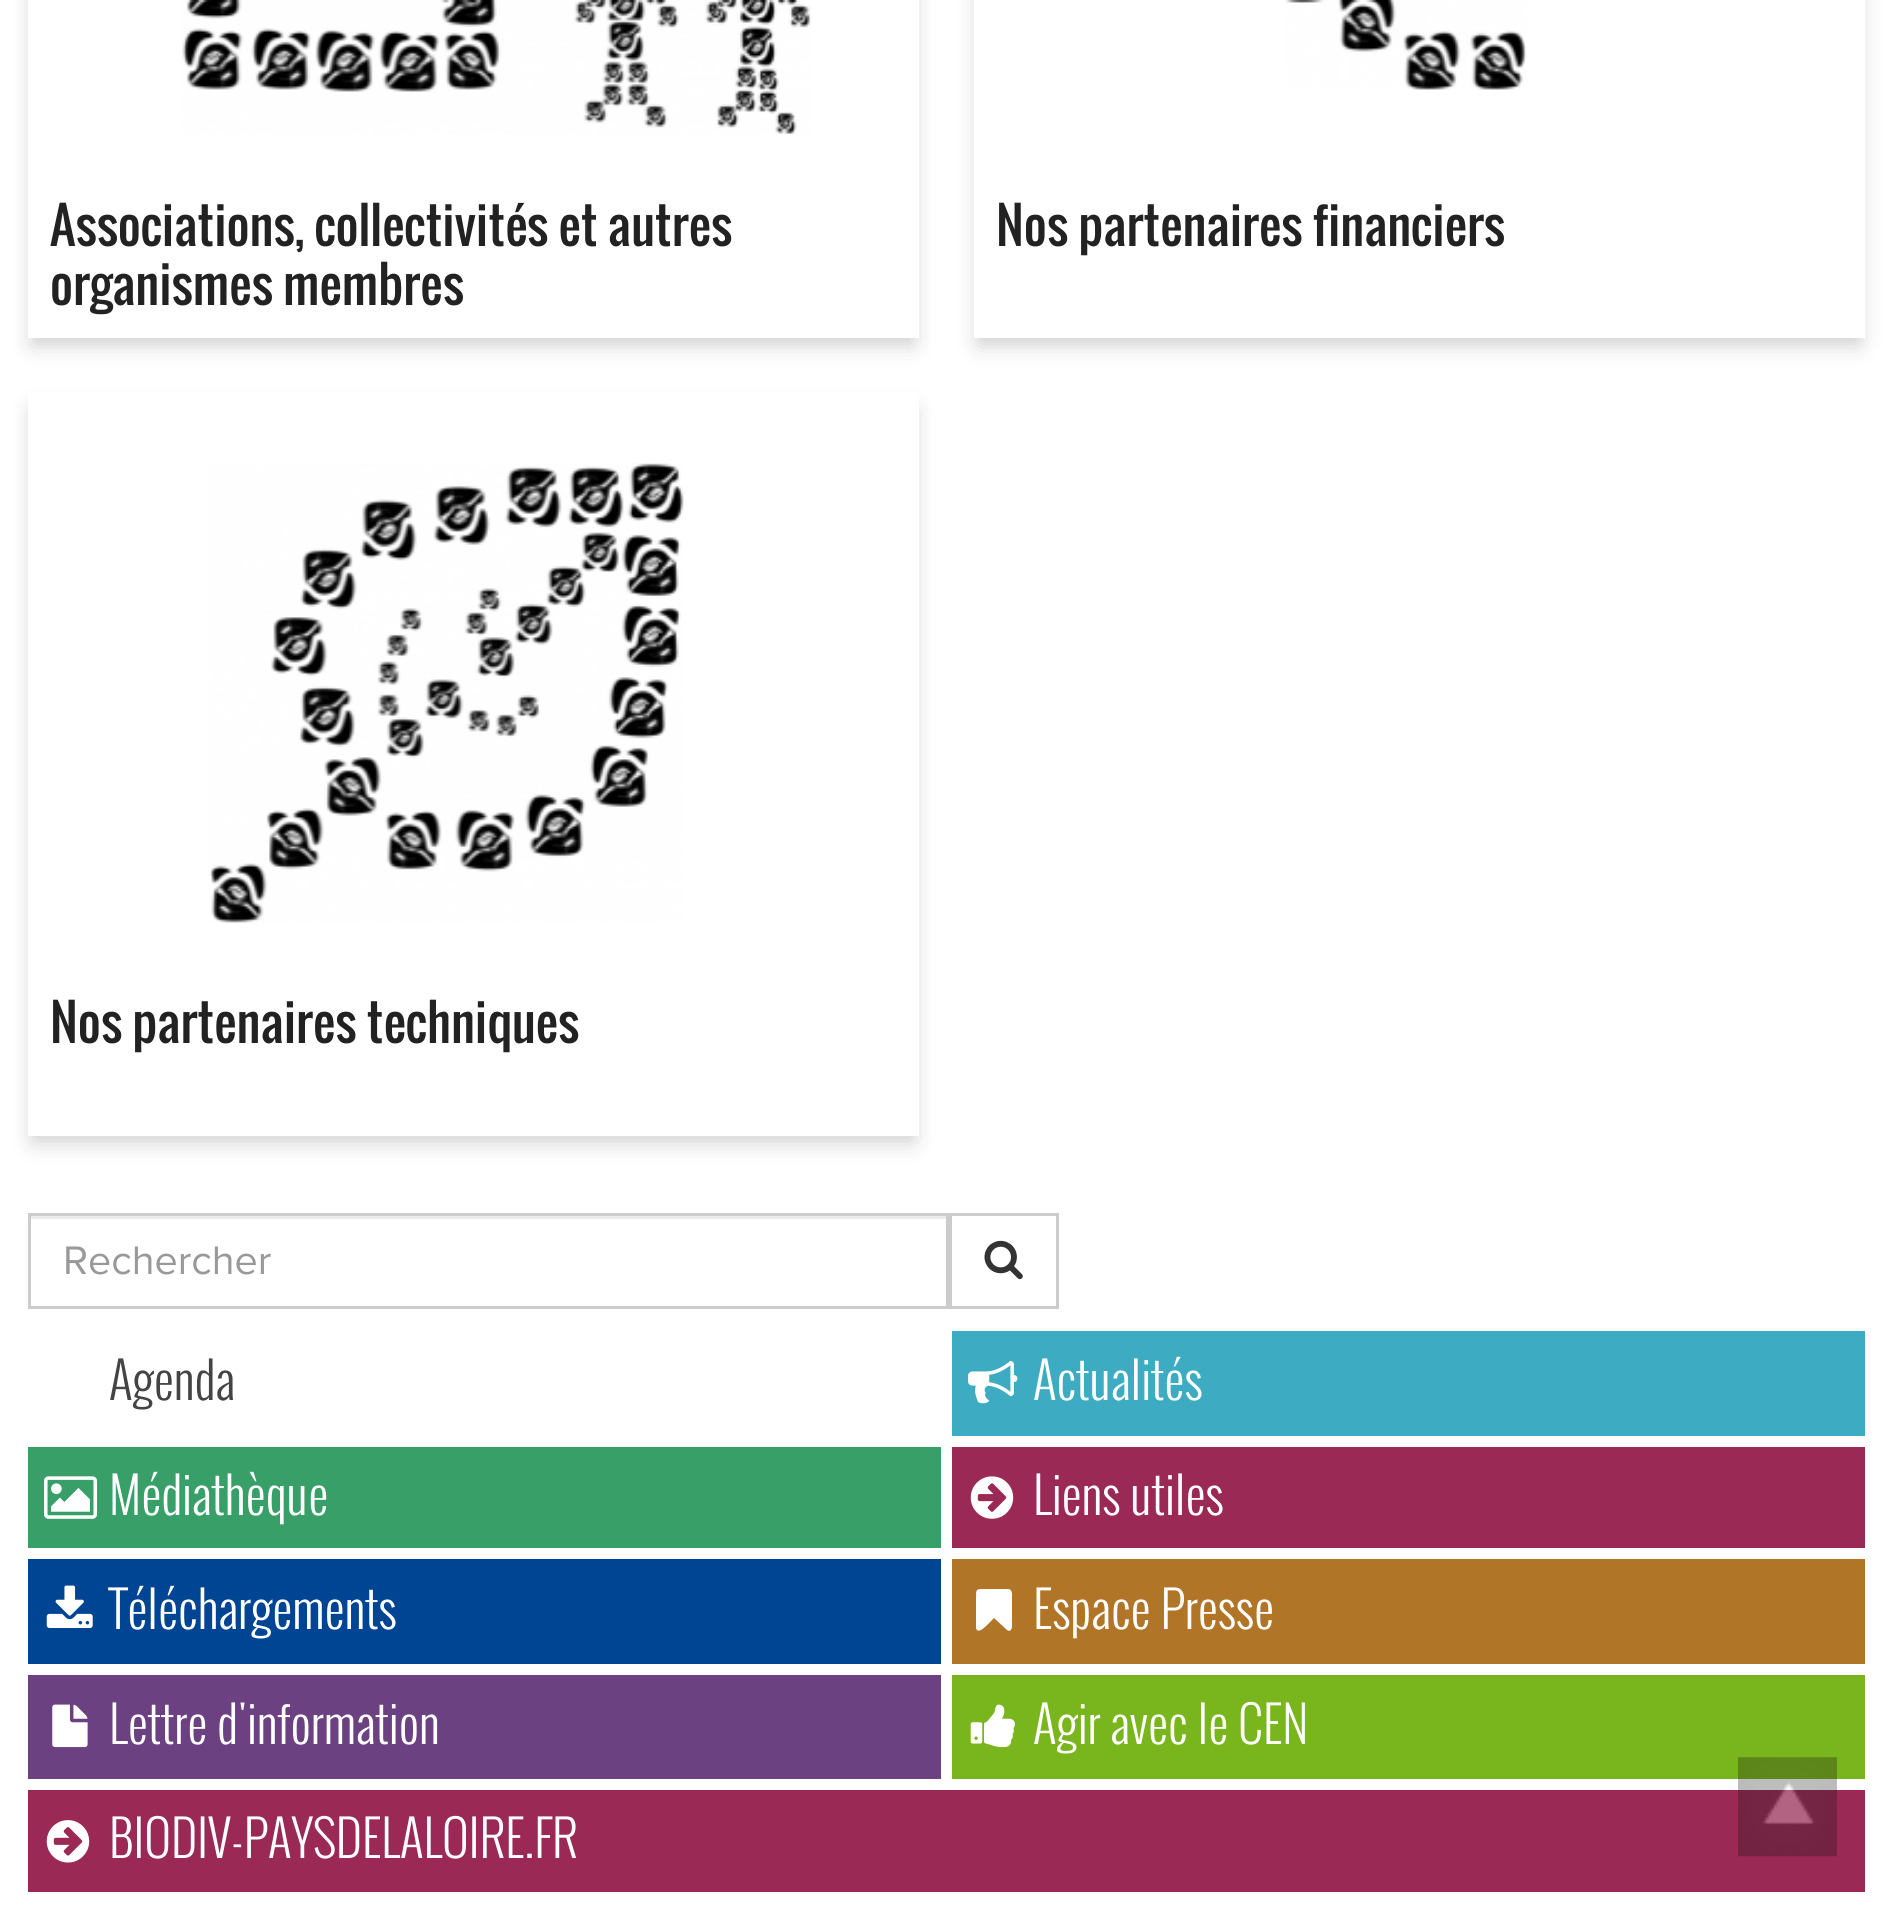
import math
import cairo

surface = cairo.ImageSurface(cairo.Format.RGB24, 1891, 1911)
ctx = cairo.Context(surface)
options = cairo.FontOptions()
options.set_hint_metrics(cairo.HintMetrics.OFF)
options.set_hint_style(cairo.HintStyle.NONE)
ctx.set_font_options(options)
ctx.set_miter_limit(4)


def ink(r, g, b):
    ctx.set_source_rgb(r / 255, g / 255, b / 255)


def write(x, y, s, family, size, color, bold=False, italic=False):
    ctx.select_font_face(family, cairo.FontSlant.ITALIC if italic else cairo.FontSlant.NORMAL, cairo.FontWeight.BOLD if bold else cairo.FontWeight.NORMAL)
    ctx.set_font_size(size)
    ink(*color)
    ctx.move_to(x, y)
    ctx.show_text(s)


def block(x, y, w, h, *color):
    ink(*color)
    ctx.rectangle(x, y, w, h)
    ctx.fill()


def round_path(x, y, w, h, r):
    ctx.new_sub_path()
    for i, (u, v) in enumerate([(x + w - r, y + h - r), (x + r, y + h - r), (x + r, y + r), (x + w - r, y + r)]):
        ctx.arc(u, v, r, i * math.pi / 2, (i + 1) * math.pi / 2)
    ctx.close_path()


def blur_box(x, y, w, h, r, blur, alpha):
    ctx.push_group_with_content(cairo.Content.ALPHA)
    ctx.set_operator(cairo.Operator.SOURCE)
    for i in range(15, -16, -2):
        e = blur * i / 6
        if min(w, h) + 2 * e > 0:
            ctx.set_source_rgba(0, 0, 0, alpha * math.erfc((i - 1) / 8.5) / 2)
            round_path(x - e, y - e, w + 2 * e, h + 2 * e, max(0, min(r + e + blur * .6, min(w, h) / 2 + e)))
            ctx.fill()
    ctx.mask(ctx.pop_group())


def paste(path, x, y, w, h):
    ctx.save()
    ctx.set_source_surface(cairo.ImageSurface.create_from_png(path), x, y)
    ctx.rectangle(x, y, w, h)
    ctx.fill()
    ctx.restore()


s1 = dict(family="Oswald", size=49.5, color=(34, 34, 34))
s2 = dict(family="Proxima Nova", size=41.25, color=(153, 153, 153))
s3 = dict(family="Oswald Light", size=49.5, color=(68, 68, 68))
s4 = dict(family="Oswald Light", size=49.5, color=(255, 255, 255))

ink(255, 255, 255)
ctx.paint()
ink(204, 204, 204)
blur_box(33, -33, 880, 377, 0, 11, 1)
block(28, 0, 891, 338, 255, 255, 255)
paste("pic1.png", 182, 0, 630, 134)
write(50, 246, "Associations, collectivités et autres", **s1)
write(50, 305, "organismes membres", **s1)
ink(204, 204, 204)
blur_box(979, -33, 880, 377, 0, 11, 1)
block(974, 0, 891, 338, 255, 255, 255)
paste("pic2.png", 1285, 0, 242, 90)
write(996, 246, "Nos partenaires financiers", **s1)
ink(204, 204, 204)
blur_box(33, 410, 880, 731, 0, 11, 1)
block(28, 393, 891, 743, 255, 255, 255)
paste("pic3.png", 209, 463, 475, 460)
write(50, 1043, "Nos partenaires techniques", **s1)
block(30, 1216, 916, 3, 236, 236, 236)
ctx.rectangle(29.5, 1214.5, 918, 93)
ink(204, 204, 204)
ctx.set_line_width(3)
ctx.stroke()
write(63, 1274, "Rechercher", **s2)
ctx.rectangle(950.5, 1214.5, 107, 93)
ink(204, 204, 204)
ctx.stroke()
paste("pic4.png", 984, 1240, 39, 40)
write(109, 1400, "Agenda", **s3)
block(952, 1331, 913, 105, 61, 172, 194)
paste("pic5.png", 968, 1360, 50, 44)
write(1033, 1400, "Actualités", **s4)
block(28, 1447, 913, 101, 57, 159, 104)
paste("pic6.png", 44, 1476, 54, 43)
write(109, 1515, "Médiathèque", **s4)
block(952, 1447, 913, 101, 154, 41, 85)
paste("pic7.png", 970, 1476, 44, 43)
write(1033, 1515, "Liens utiles", **s4)
block(28, 1559, 913, 105, 0, 68, 148)
paste("pic8.png", 46, 1585, 47, 43)
write(109, 1629, "Téléchargements", **s4)
block(952, 1559, 913, 105, 177, 117, 39)
ink(255, 255, 255)
ctx.new_path()
ctx.move_to(1008, 1589)
ctx.curve_to(1013, 1589, 1012, 1596, 1012, 1598)
ctx.line_to(1012, 1622)
ctx.curve_to(1012, 1624, 1013, 1630, 1009, 1631)
ctx.line_to(1007, 1630)
ctx.line_to(994, 1618)
ctx.curve_to(988, 1624, 978, 1636, 976, 1628)
ctx.line_to(976, 1598)
ctx.curve_to(976, 1589, 976, 1589, 984, 1589)
ctx.close_path()
ctx.fill()
write(1033, 1629, "Espace Presse", **s4)
block(28, 1675, 913, 104, 108, 65, 130)
paste("pic9.png", 52, 1704, 36, 44)
write(109, 1744, "Lettre d'information", **s4)
block(952, 1675, 913, 104, 121, 181, 28)
paste("pic10.png", 970, 1704, 45, 44)
write(1033, 1744, "Agir avec le CEN", **s4)
block(28, 1790, 1837, 102, 154, 41, 85)
paste("pic11.png", 46, 1820, 44, 43)
write(109, 1858, "BIODIV-PAYSDELALOIRE.FR", **s4)
paste("pic12.png", 1738, 1757, 99, 100)
surface.write_to_png("screenshot.png")
